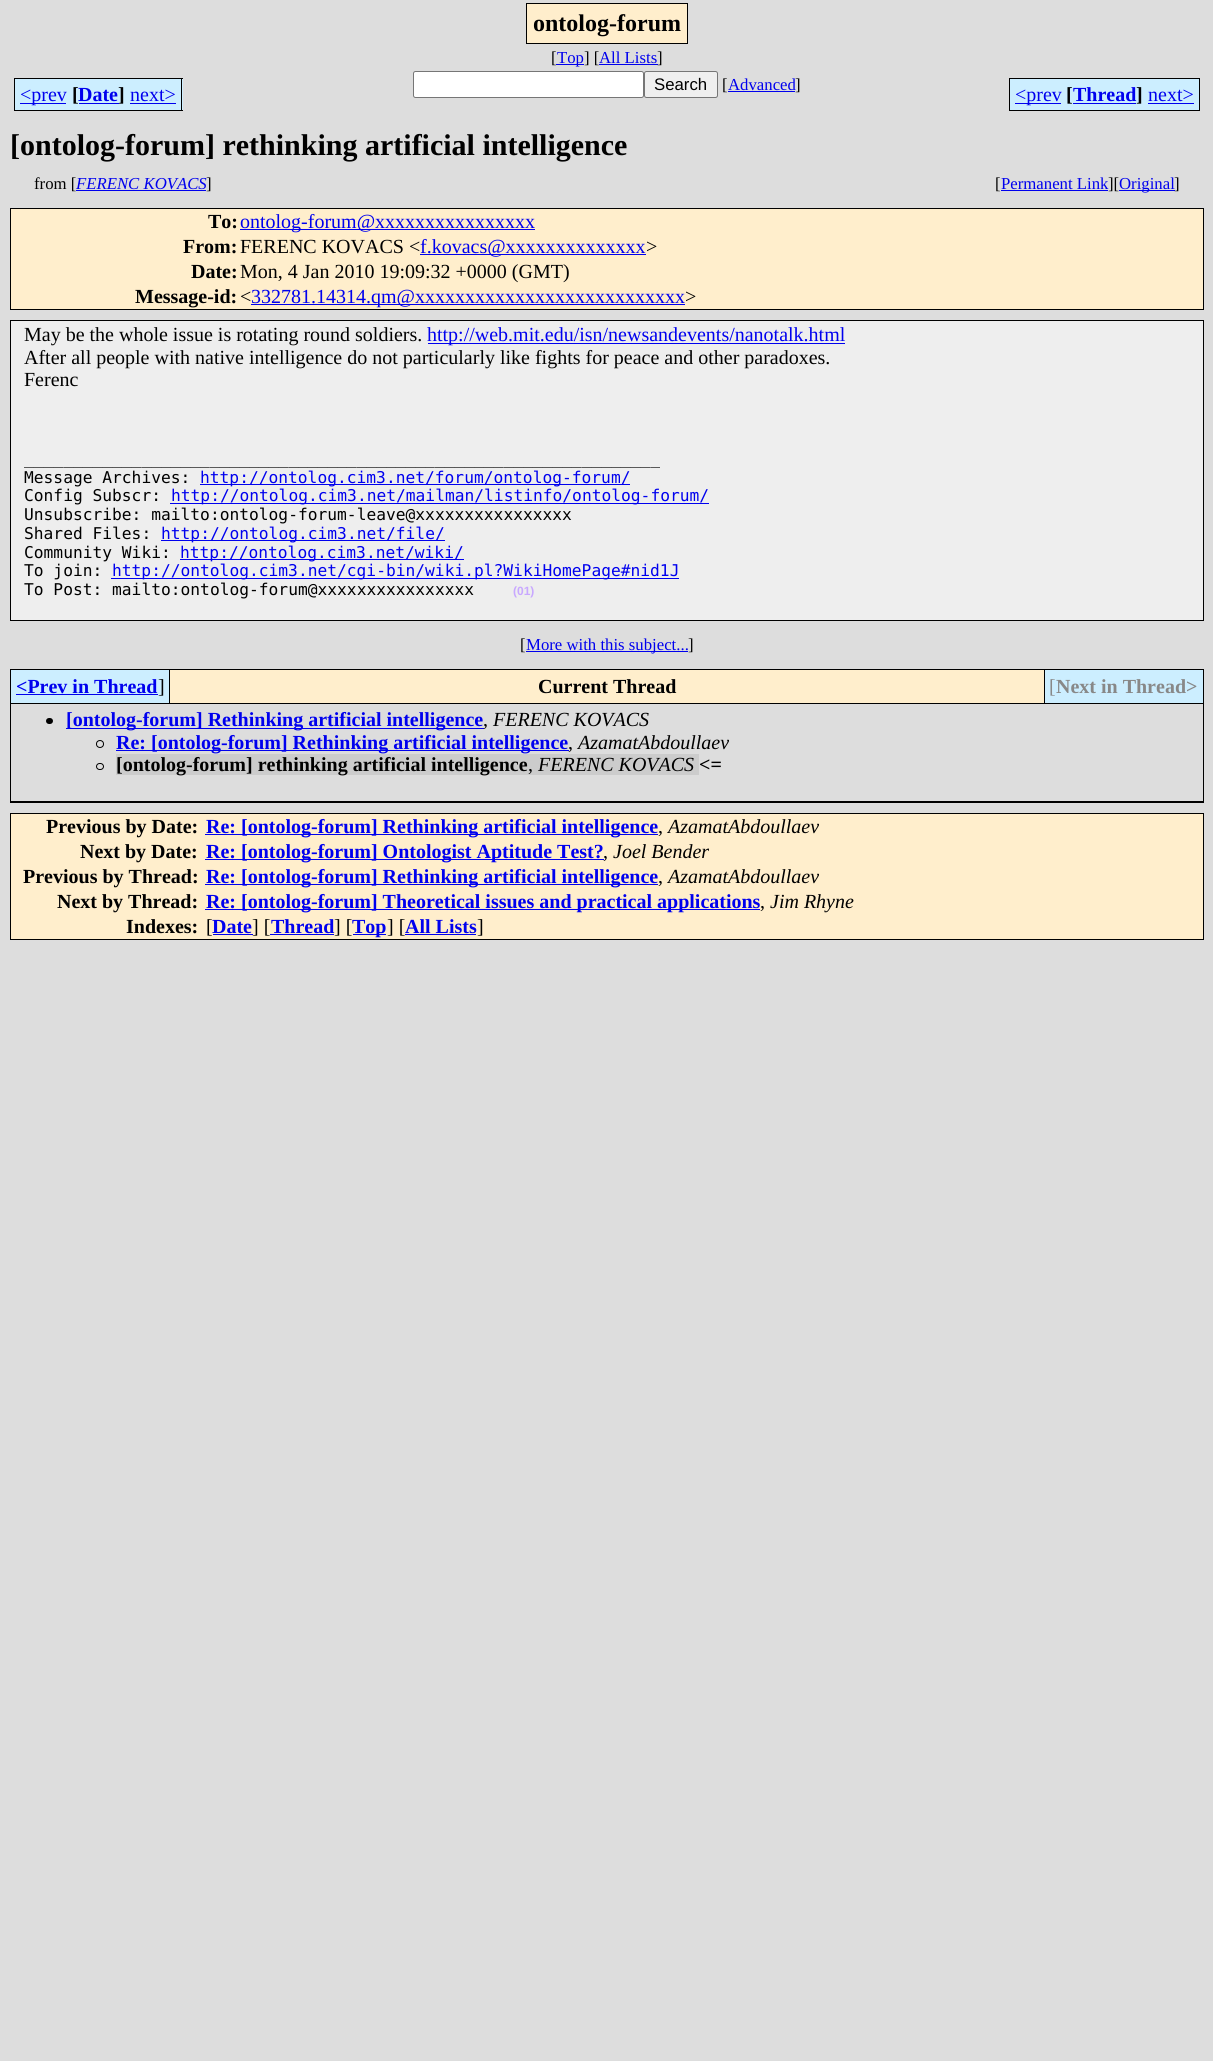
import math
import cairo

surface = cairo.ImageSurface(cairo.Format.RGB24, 1213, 2061)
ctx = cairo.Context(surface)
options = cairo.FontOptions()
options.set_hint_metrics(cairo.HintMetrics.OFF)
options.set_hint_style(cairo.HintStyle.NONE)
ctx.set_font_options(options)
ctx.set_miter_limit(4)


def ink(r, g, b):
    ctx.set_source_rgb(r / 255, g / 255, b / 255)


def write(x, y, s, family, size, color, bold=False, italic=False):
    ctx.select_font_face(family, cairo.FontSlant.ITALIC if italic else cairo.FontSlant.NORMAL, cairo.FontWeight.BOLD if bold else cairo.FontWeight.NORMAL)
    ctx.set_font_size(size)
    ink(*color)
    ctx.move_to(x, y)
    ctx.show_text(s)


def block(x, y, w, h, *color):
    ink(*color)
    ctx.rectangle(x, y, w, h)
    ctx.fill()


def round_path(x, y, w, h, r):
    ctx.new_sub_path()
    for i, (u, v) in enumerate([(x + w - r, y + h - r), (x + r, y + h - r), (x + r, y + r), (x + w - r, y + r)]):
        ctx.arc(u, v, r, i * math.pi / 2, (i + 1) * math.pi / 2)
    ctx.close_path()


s1 = dict(family="Liberation Serif", size=24, color=(0, 0, 0), bold=True)
s2 = dict(family="Liberation Serif", size=16.75, color=(0, 0, 0))
s3 = dict(family="Liberation Serif", size=16.75, color=(0, 0, 238))
s4 = dict(family="Liberation Sans", size=16.75, color=(0, 0, 0))
s5 = dict(family="Liberation Serif", size=20, color=(0, 0, 238))
s6 = dict(family="Liberation Serif", size=20, color=(0, 0, 0), bold=True)
s7 = dict(family="Liberation Serif", size=20, color=(0, 0, 238), bold=True)
s8 = dict(family="Liberation Serif", size=30, color=(0, 0, 0), bold=True)
s9 = dict(family="Liberation Serif", size=16.75, color=(0, 0, 238), italic=True)
s10 = dict(family="Liberation Serif", size=20, color=(0, 0, 0))
s11 = dict(family="DejaVu Sans Mono", size=16.25, color=(0, 0, 0))
s12 = dict(family="DejaVu Sans Mono", size=16.25, color=(0, 0, 238))
s13 = dict(family="Liberation Sans", size=12, color=(200, 168, 255), bold=True)
s14 = dict(family="Liberation Serif", size=20, color=(136, 136, 136))
s15 = dict(family="Liberation Serif", size=20, color=(136, 136, 136), bold=True)
s16 = dict(family="Liberation Serif", size=20, color=(0, 0, 0), italic=True)

ink(221, 221, 221)
ctx.paint()
ink(255, 238, 204)
ctx.rectangle(526.5, 3.5, 161, 40)
ctx.fill_preserve()
ink(0, 0, 0)
ctx.set_line_width(1)
ctx.stroke()
write(533, 31, "ontolog-forum", **s1)
write(551, 63, "[", **s2)
block(556, 64, 28, 1, 0, 0, 238)
write(557, 63, "Top", **s3)
write(584, 63, "] [", **s2)
write(599, 63, "All Lists", **s3)
block(599, 64, 59, 1, 0, 0, 238)
write(657, 63, "]", **s2)
ink(255, 255, 255)
round_path(413.5, 71.5, 230, 26, 2)
ctx.fill_preserve()
ink(118, 118, 118)
ctx.stroke()
ink(239, 239, 239)
round_path(644.5, 71.5, 73, 26, 2)
ctx.fill_preserve()
ink(118, 118, 118)
ctx.stroke()
write(654, 90, "Search", **s4)
write(722, 90, "[", **s2)
write(728, 90, "Advanced", **s3)
write(795, 90, "]", **s2)
block(728, 91, 67, 1, 0, 0, 238)
block(15, 79, 51, 31, 204, 238, 255)
block(20, 103, 46, 1, 0, 0, 238)
block(66, 78, 13, 33, 204, 238, 255)
write(20, 101, "<prev", **s5)
block(14, 78, 52, 1, 0, 0, 0)
block(14, 110, 52, 1, 0, 0, 0)
block(14, 78, 1, 33, 0, 0, 0)
block(66, 110, 53, 1, 0, 0, 0)
write(72, 101, "[", **s6)
block(79, 79, 40, 31, 204, 238, 255)
write(78, 101, "Date", **s7)
block(66, 78, 53, 1, 0, 0, 0)
block(119, 78, 11, 33, 204, 238, 255)
block(119, 78, 64, 1, 0, 0, 0)
write(118, 101, "]", **s6)
block(119, 110, 11, 1, 0, 0, 0)
block(79, 103, 40, 1, 0, 0, 238)
block(130, 79, 53, 31, 204, 238, 255)
write(130, 101, "next>", **s5)
block(181, 78, 1, 33, 0, 0, 0)
block(130, 110, 53, 1, 0, 0, 0)
block(130, 103, 46, 1, 0, 0, 238)
block(1010, 79, 51, 31, 204, 238, 255)
block(1015, 103, 46, 1, 0, 0, 238)
block(1061, 78, 12, 33, 204, 238, 255)
write(1015, 101, "<prev", **s5)
block(1009, 78, 52, 1, 0, 0, 0)
block(1009, 110, 52, 1, 0, 0, 0)
block(1009, 78, 1, 33, 0, 0, 0)
block(1061, 110, 75, 1, 0, 0, 0)
write(1066, 101, "[", **s6)
block(1073, 79, 63, 31, 204, 238, 255)
block(1073, 103, 63, 1, 0, 0, 238)
block(1136, 78, 12, 33, 204, 238, 255)
write(1073, 101, "Thread", **s7)
block(1061, 78, 75, 1, 0, 0, 0)
block(1136, 78, 64, 1, 0, 0, 0)
write(1136, 101, "]", **s6)
block(1136, 110, 12, 1, 0, 0, 0)
block(1148, 79, 51, 31, 204, 238, 255)
write(1148, 101, "next>", **s5)
block(1199, 78, 1, 33, 0, 0, 0)
block(1148, 110, 52, 1, 0, 0, 0)
block(1148, 103, 46, 1, 0, 0, 238)
write(10, 155, "[ontolog-forum] rethinking artificial intelligence", **s8)
write(34, 189, "from [", **s2)
block(76, 190, 130, 1, 0, 0, 238)
write(76, 189, "FERENC KOVACS", **s9)
write(206, 189, "]", **s2)
write(995, 189, "[", **s2)
block(1001, 190, 107, 1, 0, 0, 238)
write(1001, 189, "Permanent Link", **s3)
write(1108, 189, "][", **s2)
block(1119, 190, 56, 1, 0, 0, 238)
write(1119, 189, "Original", **s3)
write(1174, 189, "]", **s2)
ink(255, 238, 204)
ctx.rectangle(10.5, 208.5, 1193, 101)
ctx.fill_preserve()
ink(0, 0, 0)
ctx.stroke()
write(208, 228, "To:", **s6)
block(240, 229, 295, 1, 0, 0, 238)
write(240, 228, "ontolog-forum@xxxxxxxxxxxxxxxx", **s5)
write(183, 253, "From:", **s6)
write(240, 253, "FERENC KOVACS <", **s10)
block(420, 254, 226, 1, 0, 0, 238)
write(420, 253, "f.kovacs@xxxxxxxxxxxxxx", **s5)
write(646, 253, ">", **s10)
write(191, 278, "Date:", **s6)
write(240, 278, "Mon, 4 Jan 2010 19:09:32 +0000 (GMT)", **s10)
write(135, 303, "Message-id:", **s6)
write(240, 303, "<", **s10)
block(251, 304, 434, 1, 0, 0, 238)
write(251, 303, "332781.14314.qm@xxxxxxxxxxxxxxxxxxxxxxxxxxx", **s5)
write(685, 303, ">", **s10)
ink(238, 238, 238)
ctx.rectangle(10.5, 320.5, 1193, 300)
ctx.fill_preserve()
ink(0, 0, 0)
ctx.stroke()
write(24, 341, "May be the whole issue is rotating round soldiers.", **s10)
block(428, 343, 417, 1, 0, 0, 238)
write(427, 341, "http://web.mit.edu/isn/newsandevents/nanotalk.html", **s5)
write(24, 364, "After all people with native intelligence do not particularly like fights for peace and other paradoxes.", **s10)
write(24, 386, "Ferenc", **s10)
write(24, 464, "_________________________________________________________________", **s11)
write(24, 483, "Message Archives:", **s11)
block(200, 484, 430, 1, 0, 0, 238)
write(200, 483, "http://ontolog.cim3.net/forum/ontolog-forum/", **s12)
write(24, 501, "Config Subscr:", **s11)
block(170, 503, 539, 1, 0, 0, 238)
write(171, 501, "http://ontolog.cim3.net/mailman/listinfo/ontolog-forum/", **s12)
write(24, 520, "Unsubscribe: mailto:ontolog-forum-leave@xxxxxxxxxxxxxxxx", **s11)
write(24, 539, "Shared Files:", **s11)
block(161, 540, 284, 1, 0, 0, 238)
write(161, 539, "http://ontolog.cim3.net/file/", **s12)
write(24, 558, "Community Wiki:", **s11)
block(180, 559, 284, 1, 0, 0, 238)
write(180, 558, "http://ontolog.cim3.net/wiki/", **s12)
write(24, 576, "To join:", **s11)
block(111, 578, 568, 1, 0, 0, 238)
write(112, 576, "http://ontolog.cim3.net/cgi-bin/wiki.pl?WikiHomePage#nid1J", **s12)
write(24, 595, "To Post: mailto:ontolog-forum@xxxxxxxxxxxxxxxx", **s11)
write(513, 595, "(01)", **s13)
write(520, 650, "[", **s2)
block(526, 651, 162, 1, 0, 0, 238)
write(526, 650, "More with this subject...", **s3)
write(688, 650, "]", **s2)
block(10, 669, 1194, 134, 0, 0, 0)
block(11, 670, 158, 33, 204, 238, 255)
write(16, 693, "<Prev in Thread", **s7)
block(16, 694, 142, 1, 0, 0, 238)
write(158, 693, "]", **s10)
block(170, 670, 874, 33, 255, 238, 204)
write(538, 693, "Current Thread", **s6)
block(1045, 670, 158, 33, 204, 238, 255)
write(1049, 693, "[", **s14)
write(1056, 693, "Next in Thread>", **s15)
block(11, 704, 1192, 97, 221, 221, 221)
ink(0, 0, 0)
round_path(46, 718, 7, 6, 3)
ctx.fill()
block(66, 728, 418, 1, 0, 0, 238)
write(66, 726, "[ontolog-forum] Rethinking artificial intelligence", **s7)
write(493, 726, "FERENC KOVACS", **s16)
write(483, 726, ",", **s10)
ctx.new_path()
ctx.arc(100, 744, 3.5, 0, 2 * math.pi)
ctx.stroke()
block(116, 750, 453, 1, 0, 0, 238)
write(116, 749, "Re: [ontolog-forum] Rethinking artificial intelligence", **s7)
write(578, 749, "AzamatAbdoullaev", **s16)
write(568, 749, ",", **s10)
round_path(96.5, 763.5, 7, 6, 3)
ctx.stroke()
block(116, 754, 583, 21, 204, 204, 204)
write(116, 771, "[ontolog-forum] rethinking artificial intelligence", **s6)
write(538, 771, "FERENC KOVACS", **s16)
write(699, 771, "<=", **s6)
write(528, 771, ",", **s10)
ink(255, 238, 204)
ctx.rectangle(10.5, 813.5, 1193, 126)
ctx.fill_preserve()
ink(0, 0, 0)
ctx.stroke()
write(46, 833, "Previous by Date:", **s6)
block(205, 834, 453, 1, 0, 0, 238)
write(206, 833, "Re: [ontolog-forum] Rethinking artificial intelligence", **s7)
write(658, 833, ",", **s10)
write(668, 833, "AzamatAbdoullaev", **s16)
write(80, 858, "Next by Date:", **s6)
block(205, 859, 399, 1, 0, 0, 238)
write(206, 858, "Re: [ontolog-forum] Ontologist Aptitude Test?", **s7)
write(603, 858, ",", **s10)
write(613, 858, "Joel Bender", **s16)
write(23, 883, "Previous by Thread:", **s6)
block(205, 884, 453, 1, 0, 0, 238)
write(206, 883, "Re: [ontolog-forum] Rethinking artificial intelligence", **s7)
write(658, 883, ",", **s10)
write(668, 883, "AzamatAbdoullaev", **s16)
write(57, 908, "Next by Thread:", **s6)
block(205, 909, 555, 1, 0, 0, 238)
write(206, 908, "Re: [ontolog-forum] Theoretical issues and practical applications", **s7)
write(760, 908, ",", **s10)
write(770, 908, "Jim Rhyne", **s16)
write(126, 933, "Indexes:", **s6)
write(206, 933, "[", **s10)
write(212, 933, "Date", **s7)
block(213, 934, 40, 1, 0, 0, 238)
write(252, 933, "] [", **s10)
write(271, 933, "Thread", **s7)
block(270, 934, 64, 1, 0, 0, 238)
write(334, 933, "] [", **s10)
block(353, 934, 33, 1, 0, 0, 238)
write(352, 933, "Top", **s7)
write(387, 933, "] [", **s10)
write(405, 933, "All Lists", **s7)
block(405, 934, 71, 1, 0, 0, 238)
write(477, 933, "]", **s10)
surface.write_to_png("screenshot.png")
